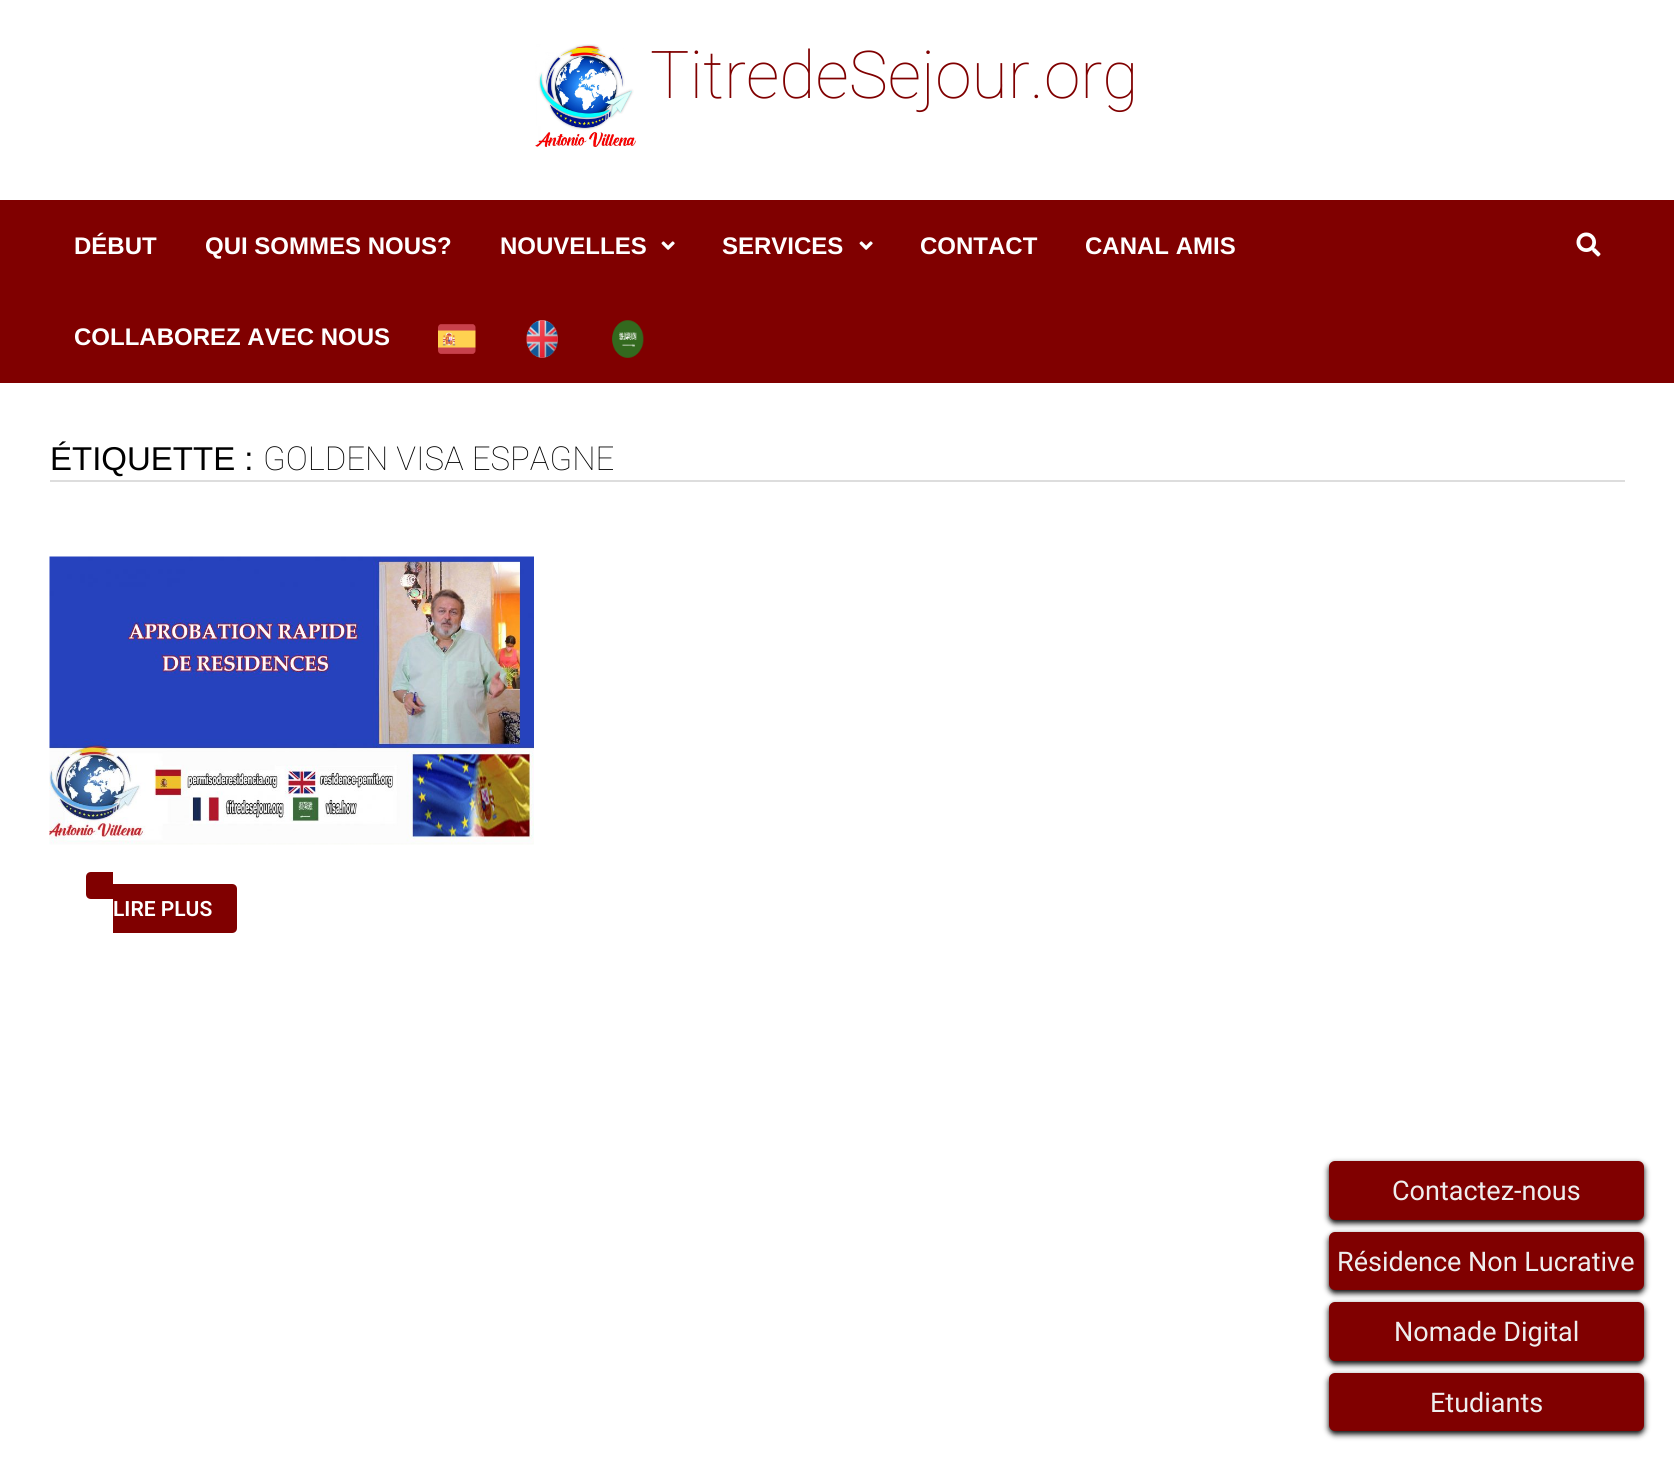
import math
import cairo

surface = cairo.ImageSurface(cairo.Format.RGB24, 1674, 1473)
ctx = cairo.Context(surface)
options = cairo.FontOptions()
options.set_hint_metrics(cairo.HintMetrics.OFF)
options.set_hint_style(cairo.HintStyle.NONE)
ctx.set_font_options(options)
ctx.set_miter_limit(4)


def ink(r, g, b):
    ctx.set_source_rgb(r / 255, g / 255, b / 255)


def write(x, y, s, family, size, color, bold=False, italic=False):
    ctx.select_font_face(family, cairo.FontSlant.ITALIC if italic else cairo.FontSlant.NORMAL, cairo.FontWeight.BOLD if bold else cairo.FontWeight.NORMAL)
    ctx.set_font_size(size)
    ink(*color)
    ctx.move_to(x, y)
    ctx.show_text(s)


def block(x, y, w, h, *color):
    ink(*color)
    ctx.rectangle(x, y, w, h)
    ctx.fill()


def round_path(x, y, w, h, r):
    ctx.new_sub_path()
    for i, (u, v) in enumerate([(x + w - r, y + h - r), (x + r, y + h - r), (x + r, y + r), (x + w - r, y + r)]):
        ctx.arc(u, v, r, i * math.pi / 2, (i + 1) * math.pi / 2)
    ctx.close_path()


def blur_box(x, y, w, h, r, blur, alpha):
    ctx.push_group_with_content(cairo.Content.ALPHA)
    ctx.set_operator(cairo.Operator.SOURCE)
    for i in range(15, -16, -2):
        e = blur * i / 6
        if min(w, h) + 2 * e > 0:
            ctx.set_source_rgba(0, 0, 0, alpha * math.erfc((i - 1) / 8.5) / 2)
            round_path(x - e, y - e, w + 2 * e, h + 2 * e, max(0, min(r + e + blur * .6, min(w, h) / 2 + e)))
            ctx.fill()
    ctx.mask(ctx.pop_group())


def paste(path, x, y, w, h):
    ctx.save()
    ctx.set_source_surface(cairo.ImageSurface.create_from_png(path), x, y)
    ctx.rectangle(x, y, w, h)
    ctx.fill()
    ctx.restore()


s1 = dict(family="Roboto Thin", size=66, color=(128, 0, 0))
s2 = dict(family="Liberation Sans", size=24, color=(255, 255, 255), bold=True)
s3 = dict(family="Liberation Sans", size=33, color=(0, 0, 0))
s4 = dict(family="Roboto Thin", size=33, color=(0, 0, 0))
s5 = dict(family="Roboto SemiBold", size=21, color=(255, 255, 255))
s6 = dict(family="Roboto", size=27, color=(238, 238, 238))

ink(255, 255, 255)
ctx.paint()
paste("pic1.png", 535, 44, 101, 103)
write(650, 98, "TitredeSejour.org", **s1)
block(0, 200, 1674, 183, 128, 0, 0)
write(74, 254, "DÉBUT", **s2)
write(205, 254, "QUI SOMMES NOUS?", **s2)
write(500, 254, "NOUVELLES", **s2)
paste("pic2.png", 661, 241, 14, 9)
write(722, 254, "SERVICES", **s2)
paste("pic2.png", 859, 241, 14, 9)
write(920, 254, "CONTACT", **s2)
write(1085, 254, "CANAL AMIS", **s2)
write(74, 345, "COLLABOREZ AVEC NOUS", **s2)
paste("pic3.png", 438, 324, 38, 30)
paste("pic4.png", 526, 320, 32, 38)
paste("pic5.png", 612, 320, 32, 38)
paste("pic6.png", 1576, 232, 25, 25)
block(50, 480, 1575, 2, 221, 221, 221)
write(50, 470, "ÉTIQUETTE :", **s3)
write(263, 470, "GOLDEN VISA ESPAGNE", **s4)
paste("pic7.png", 49, 556, 485, 289)
ink(128, 0, 0)
ctx.new_path()
ctx.move_to(113, 884)
ctx.line_to(232, 884)
ctx.curve_to(235, 884, 237, 886, 237, 889)
ctx.line_to(237, 928)
ctx.curve_to(237, 931, 235, 933, 232, 933)
ctx.line_to(113, 933)
ctx.close_path()
ctx.fill()
write(113, 916, "LIRE PLUS", **s5)
ink(128, 0, 0)
ctx.new_path()
ctx.move_to(91, 872)
ctx.line_to(113, 872)
ctx.line_to(113, 899)
ctx.line_to(91, 899)
ctx.curve_to(88, 899, 86, 897, 86, 894)
ctx.line_to(86, 877)
ctx.curve_to(86, 874, 88, 872, 91, 872)
ctx.close_path()
ctx.fill()
ink(0, 0, 0)
blur_box(1329, 1164, 315, 59, 6, 3, 1)
ink(128, 0, 0)
round_path(1329, 1161, 315, 59, 6)
ctx.fill()
write(1392, 1200, "Contactez-nous", **s6)
ink(0, 0, 0)
blur_box(1329, 1235, 315, 58, 6, 3, 1)
ink(128, 0, 0)
round_path(1329, 1232, 315, 58, 6)
ctx.fill()
write(1337, 1271, "Résidence Non Lucrative", **s6)
ink(0, 0, 0)
blur_box(1329, 1305, 315, 59, 6, 3, 1)
ink(128, 0, 0)
round_path(1329, 1302, 315, 59, 6)
ctx.fill()
write(1394, 1341, "Nomade Digital", **s6)
ink(0, 0, 0)
blur_box(1329, 1376, 315, 58, 6, 3, 1)
ink(128, 0, 0)
round_path(1329, 1373, 315, 58, 6)
ctx.fill()
write(1430, 1412, "Etudiants", **s6)
surface.write_to_png("screenshot.png")
